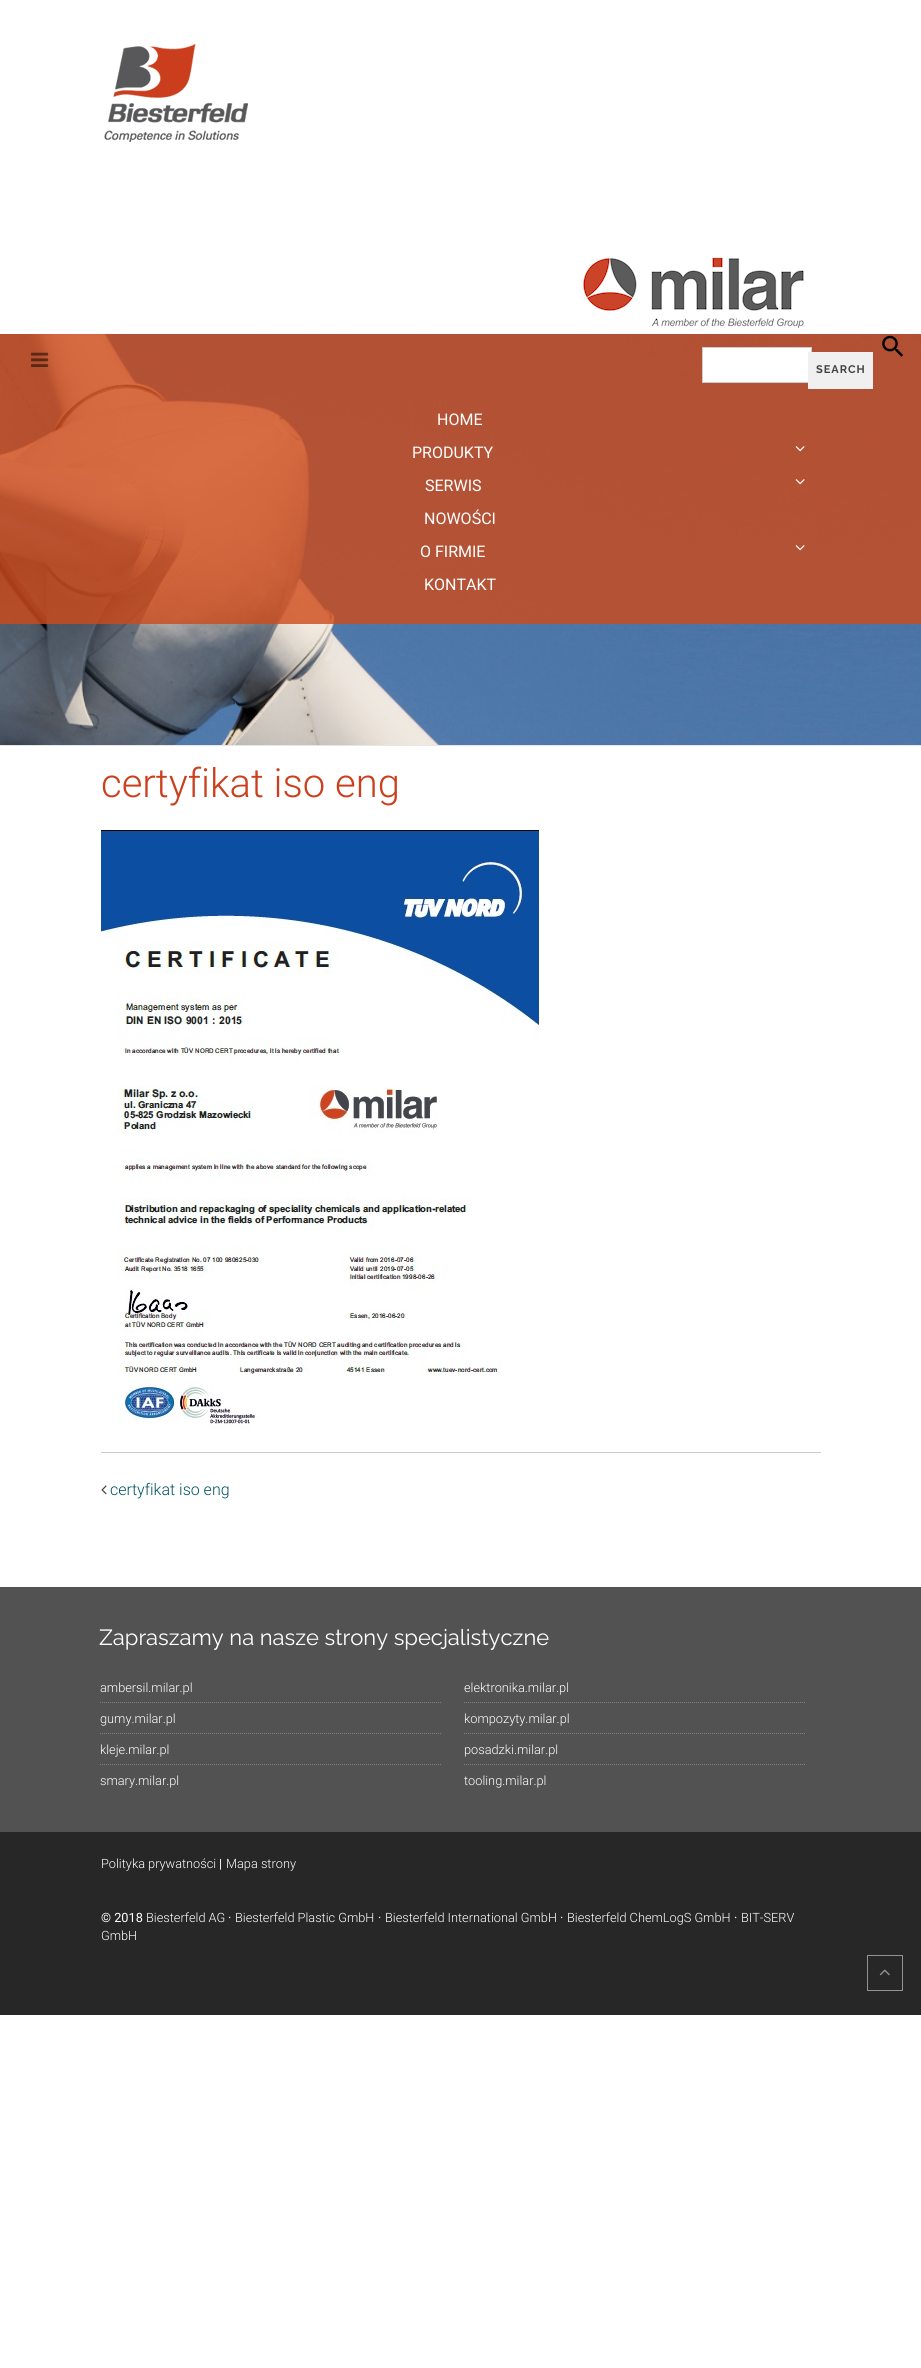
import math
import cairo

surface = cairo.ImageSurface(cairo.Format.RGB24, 921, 2368)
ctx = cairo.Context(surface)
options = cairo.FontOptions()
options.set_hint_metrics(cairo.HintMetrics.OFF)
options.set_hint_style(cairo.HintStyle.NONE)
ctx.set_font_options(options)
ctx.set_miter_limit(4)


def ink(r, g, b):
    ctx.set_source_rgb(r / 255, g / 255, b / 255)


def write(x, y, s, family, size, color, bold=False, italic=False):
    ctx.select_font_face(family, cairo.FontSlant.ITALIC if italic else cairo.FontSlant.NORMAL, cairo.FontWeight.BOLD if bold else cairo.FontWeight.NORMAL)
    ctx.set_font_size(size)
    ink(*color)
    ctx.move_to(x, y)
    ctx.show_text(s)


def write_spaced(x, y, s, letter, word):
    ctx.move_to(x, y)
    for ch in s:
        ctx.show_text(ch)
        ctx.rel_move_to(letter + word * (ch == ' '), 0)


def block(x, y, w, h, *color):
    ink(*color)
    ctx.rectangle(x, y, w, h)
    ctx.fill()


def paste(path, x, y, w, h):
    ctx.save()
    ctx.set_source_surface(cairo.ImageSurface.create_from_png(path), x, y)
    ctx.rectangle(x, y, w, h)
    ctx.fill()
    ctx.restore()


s1 = dict(family="Roboto", size=16, color=(255, 255, 255))
s2 = dict(family="Roboto Light", size=40, color=(203, 63, 29))
s3 = dict(family="Roboto Light", size=16, color=(0, 82, 98))
s4 = dict(family="Raleway", size=22, color=(255, 255, 255))
s5 = dict(family="Roboto Light", size=12.75, color=(255, 255, 255))
s6 = dict(family="Roboto", size=12.75, color=(255, 255, 255))

ink(255, 255, 255)
ctx.paint()
block(0, 745, 921, 1, 230, 230, 230)
paste("pic1.png", 104, 44, 144, 98)
paste("pic2.png", 583, 257, 221, 72)
paste("pic3.png", 0, 334, 921, 411)
ctx.set_source_rgba(0.808, 0.29, 0.098, 0.8)
ctx.rectangle(0, 334, 921, 70)
ctx.fill()
paste("pic4.png", 31, 352, 18, 15)
paste("pic5.png", 882, 335, 21, 22)
ink(255, 255, 255)
ctx.rectangle(702.5, 347.5, 109, 35)
ctx.fill_preserve()
ink(204, 204, 204)
ctx.set_line_width(1)
ctx.stroke()
block(808, 352, 65, 37, 240, 240, 240)
ctx.select_font_face("Raleway", cairo.FontSlant.NORMAL, cairo.FontWeight.BOLD)
ctx.set_font_size(11)
ink(67, 67, 67)
write_spaced(816, 373, "SEARCH", 1, 0)
ctx.set_source_rgba(0.808, 0.29, 0.098, 0.8)
ctx.rectangle(0, 404, 921, 220)
ctx.fill()
write(437, 425, "HOME", **s1)
write(412, 458, "PRODUKTY", **s1)
paste("pic6.png", 795, 446, 10, 6)
write(425, 491, "SERWIS", **s1)
paste("pic7.png", 795, 479, 10, 6)
write(424, 524, "NOWOŚCI", **s1)
write(420, 557, "O FIRMIE", **s1)
paste("pic8.png", 795, 545, 10, 6)
write(424, 590, "KONTAKT", **s1)
write(101, 797, "certyfikat iso eng", **s2)
paste("pic9.png", 101, 830, 441, 600)
block(101, 1452, 720, 1, 204, 204, 204)
paste("pic10.png", 101, 1485, 6, 10)
write(110, 1495, "certyfikat iso eng", **s3)
block(0, 1587, 921, 245, 82, 82, 82)
write(99, 1645, "Zapraszamy na nasze strony specjalistyczne", **s4)
ctx.new_path()
ctx.move_to(100, 1702.5)
ctx.line_to(442, 1702.5)
ink(128, 128, 128)
ctx.set_dash([1, 1])
ctx.stroke()
write(100, 1692, "ambersil.milar.pl", **s5)
ctx.new_path()
ctx.move_to(100, 1733.5)
ctx.line_to(442, 1733.5)
ink(128, 128, 128)
ctx.stroke()
write(100, 1723, "gumy.milar.pl", **s5)
ctx.new_path()
ctx.move_to(100, 1764.5)
ctx.line_to(442, 1764.5)
ink(128, 128, 128)
ctx.stroke()
write(100, 1754, "kleje.milar.pl", **s5)
write(100, 1785, "smary.milar.pl", **s5)
ctx.new_path()
ctx.move_to(464, 1702.5)
ctx.line_to(806, 1702.5)
ink(128, 128, 128)
ctx.stroke()
write(464, 1692, "elektronika.milar.pl", **s5)
ctx.new_path()
ctx.move_to(464, 1733.5)
ctx.line_to(806, 1733.5)
ink(128, 128, 128)
ctx.stroke()
write(464, 1723, "kompozyty.milar.pl", **s5)
ctx.new_path()
ctx.move_to(464, 1764.5)
ctx.line_to(806, 1764.5)
ink(128, 128, 128)
ctx.stroke()
write(464, 1754, "posadzki.milar.pl", **s5)
write(464, 1785, "tooling.milar.pl", **s5)
block(0, 1832, 921, 183, 39, 39, 39)
write(101, 1868, "Polityka prywatności", **s5)
write(219, 1868, "|", **s6)
write(226, 1868, "Mapa strony", **s5)
write(101, 1922, "© 2018", **s6)
write(146, 1922, "Biesterfeld AG", **s5)
write(228, 1922, "·", **s6)
write(235, 1922, "Biesterfeld Plastic GmbH", **s5)
write(378, 1922, "·", **s6)
write(385, 1922, "Biesterfeld International GmbH", **s5)
write(560, 1922, "·", **s6)
write(567, 1922, "Biesterfeld ChemLogS GmbH", **s5)
write(734, 1922, "·", **s6)
write(741, 1922, "BIT-SERV", **s5)
write(101, 1940, "GmbH", **s5)
ctx.rectangle(867.5, 1955.5, 35, 35)
ink(147, 147, 147)
ctx.set_dash([])
ctx.stroke()
paste("pic11.png", 879, 1969, 11, 7)
surface.write_to_png("screenshot.png")
